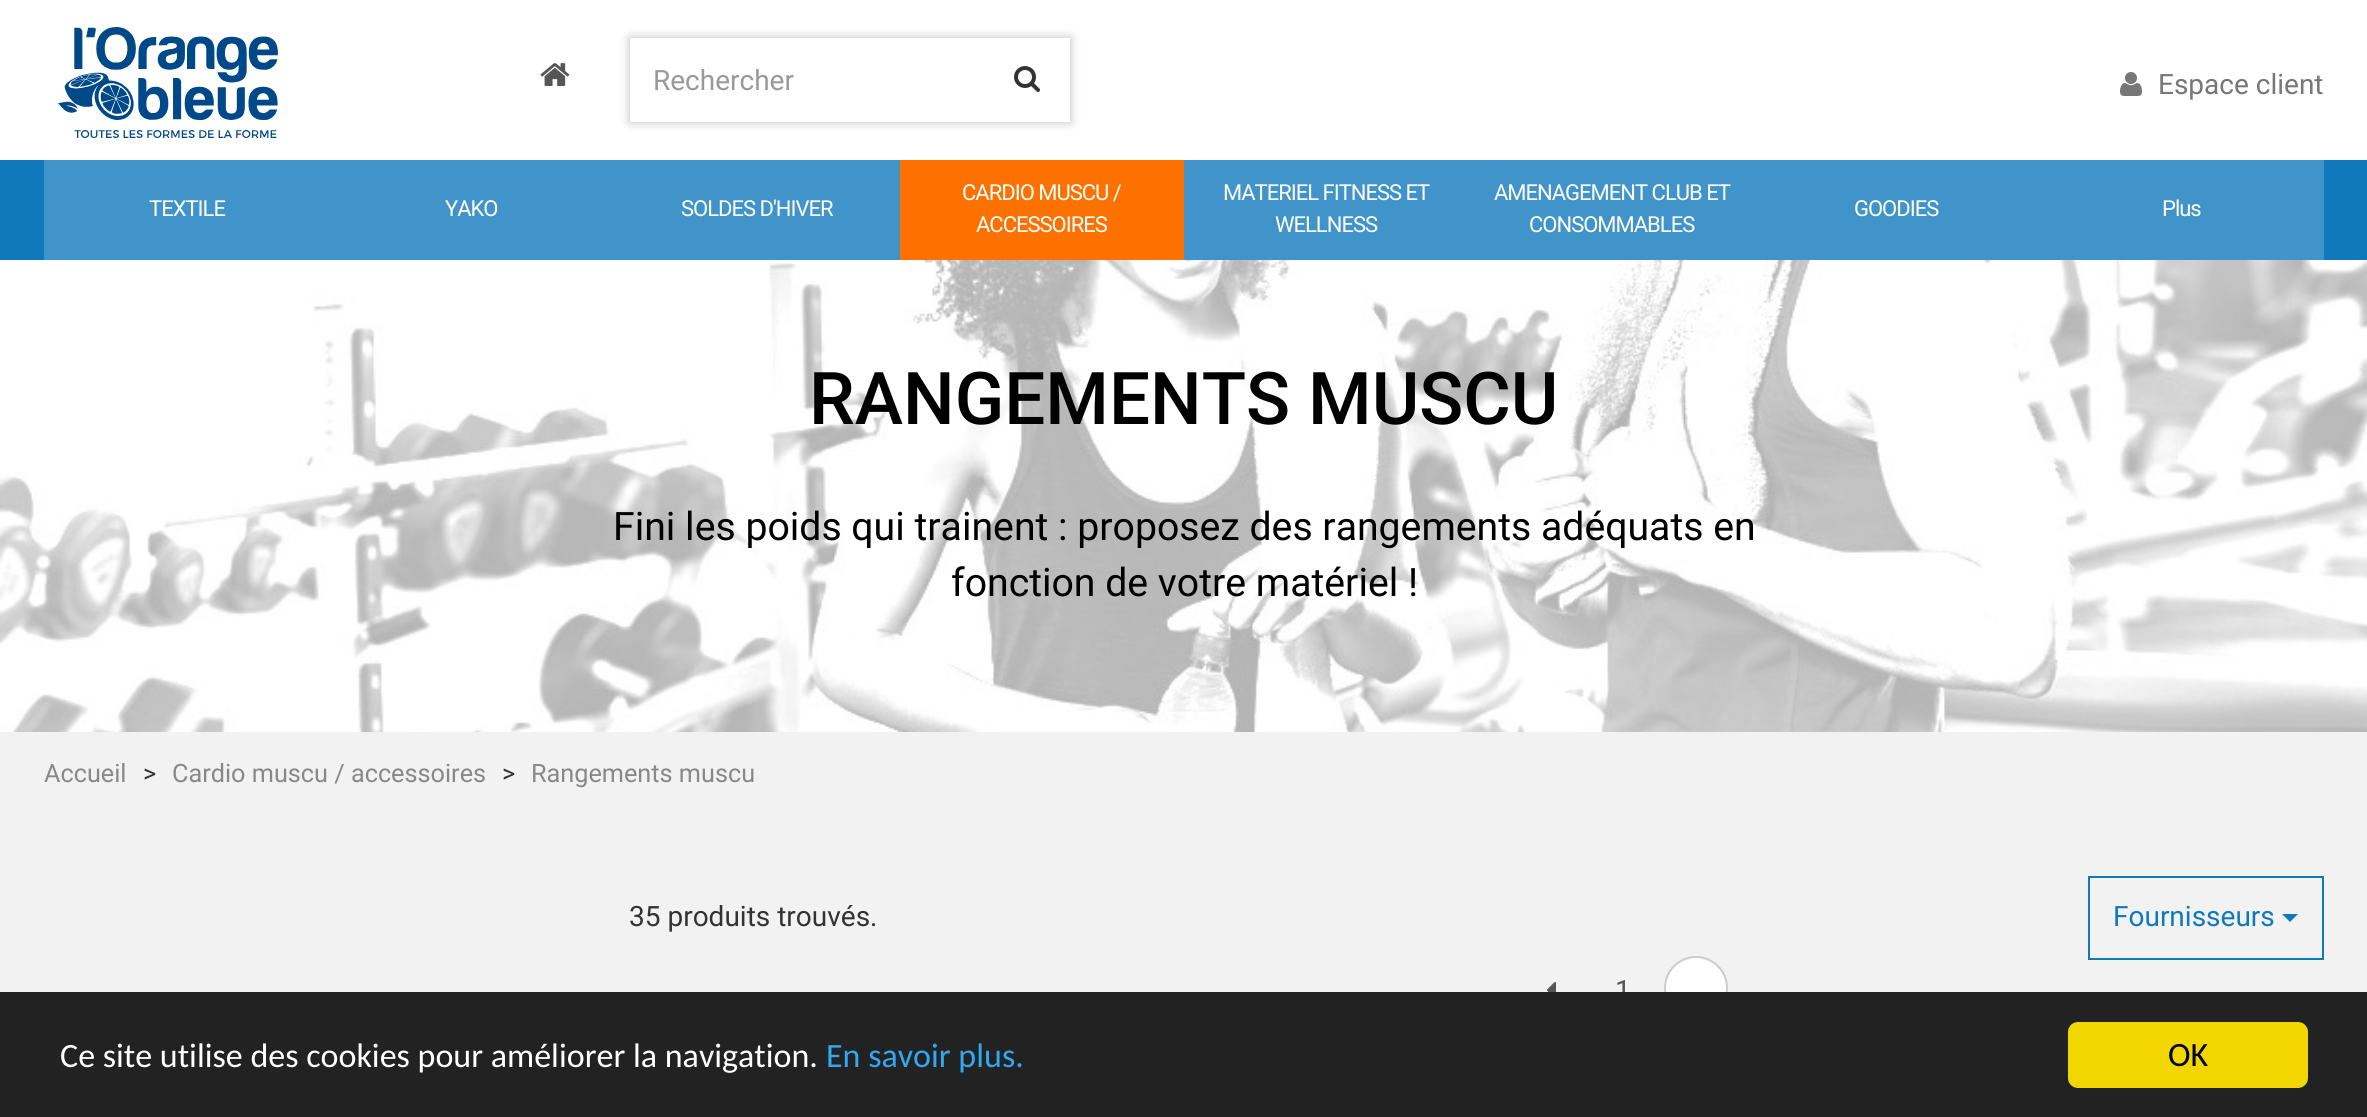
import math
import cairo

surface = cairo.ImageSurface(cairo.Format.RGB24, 2367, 1117)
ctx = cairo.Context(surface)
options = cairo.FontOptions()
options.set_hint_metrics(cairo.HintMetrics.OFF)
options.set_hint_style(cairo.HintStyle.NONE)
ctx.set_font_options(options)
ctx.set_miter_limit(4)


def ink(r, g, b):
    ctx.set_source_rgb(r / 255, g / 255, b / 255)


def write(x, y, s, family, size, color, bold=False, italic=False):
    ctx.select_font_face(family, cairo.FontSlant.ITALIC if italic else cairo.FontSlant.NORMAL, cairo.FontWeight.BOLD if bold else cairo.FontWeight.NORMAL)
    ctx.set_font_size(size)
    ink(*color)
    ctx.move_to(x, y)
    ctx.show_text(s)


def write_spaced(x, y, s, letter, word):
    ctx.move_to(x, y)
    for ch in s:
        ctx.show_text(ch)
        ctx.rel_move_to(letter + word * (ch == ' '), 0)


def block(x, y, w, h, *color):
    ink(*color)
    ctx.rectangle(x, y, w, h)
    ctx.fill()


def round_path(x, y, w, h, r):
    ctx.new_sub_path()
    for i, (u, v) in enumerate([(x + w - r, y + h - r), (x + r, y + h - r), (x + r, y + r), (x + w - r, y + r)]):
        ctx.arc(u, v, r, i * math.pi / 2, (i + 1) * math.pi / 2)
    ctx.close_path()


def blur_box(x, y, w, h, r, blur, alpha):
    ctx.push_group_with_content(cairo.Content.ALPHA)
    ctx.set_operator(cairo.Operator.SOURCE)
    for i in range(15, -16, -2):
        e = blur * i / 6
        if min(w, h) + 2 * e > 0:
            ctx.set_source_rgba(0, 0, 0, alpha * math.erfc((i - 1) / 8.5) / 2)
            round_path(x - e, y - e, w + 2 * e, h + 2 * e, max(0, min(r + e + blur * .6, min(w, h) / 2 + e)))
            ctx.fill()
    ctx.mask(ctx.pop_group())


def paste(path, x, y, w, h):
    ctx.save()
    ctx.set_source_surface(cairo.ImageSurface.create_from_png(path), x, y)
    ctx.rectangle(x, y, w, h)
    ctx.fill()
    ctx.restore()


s1 = dict(family="Roboto", size=28, color=(153, 153, 153))
s2 = dict(family="Roboto", size=28, color=(119, 119, 119))
s3 = dict(family="Roboto Medium", size=72.75, color=(0, 0, 0))
s4 = dict(family="Roboto", size=39.2, color=(0, 0, 0))
s5 = dict(family="Roboto", size=25.25, color=(136, 136, 136))
s6 = dict(family="Roboto", size=25.25, color=(51, 51, 51))
s7 = dict(family="Roboto", size=28, color=(51, 51, 51))
s8 = dict(family="Roboto", size=28, color=(86, 86, 86))
s9 = dict(family="Roboto", size=28, color=(16, 121, 188))
s10 = dict(family="Carlito", size=34, color=(255, 255, 255))
s11 = dict(family="Carlito", size=34, color=(49, 168, 240))
s12 = dict(family="Carlito", size=34, color=(0, 0, 0))

ink(255, 255, 255)
ctx.paint()
paste("pic1.png", 58, 27, 220, 111)
paste("pic2.png", 540, 63, 30, 23)
ctx.save()
ctx.set_fill_rule(cairo.FillRule.EVEN_ODD)
ctx.new_path()
ctx.move_to(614, 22)
ctx.line_to(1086, 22)
ctx.line_to(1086, 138)
ctx.line_to(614, 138)
ctx.close_path()
ctx.move_to(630, 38)
ctx.line_to(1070, 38)
ctx.line_to(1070, 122)
ctx.line_to(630, 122)
ctx.close_path()
ctx.clip()
ink(187, 187, 187)
blur_box(630, 38, 440, 84, 0, 5, 1)
ctx.restore()
write(653, 90, "Rechercher", **s1)
paste("pic3.png", 1014, 66, 26, 26)
paste("pic4.png", 2120, 72, 22, 24)
write(2158, 94, "Espace client", **s2)
block(0, 160, 2367, 100, 16, 121, 188)
block(44, 160, 856, 100, 64, 148, 201)
ctx.set_font_size(22)
ink(255, 255, 255)
write_spaced(149, 216, "TEXTILE", -1, 0)
write_spaced(445, 216, "YAKO", -1, 0)
write_spaced(681, 216, "SOLDES D'HIVER", -1, 0)
block(900, 160, 284, 100, 252, 113, 0)
ink(255, 255, 255)
write_spaced(962, 200, "CARDIO MUSCU /", -1, 0)
write_spaced(976, 232, "ACCESSOIRES", -1, 0)
block(1184, 160, 1140, 100, 64, 148, 201)
ink(255, 255, 255)
write_spaced(1223, 200, "MATERIEL FITNESS ET", -1, 0)
write_spaced(1275, 232, "WELLNESS", -1, 0)
write_spaced(1494, 200, "AMENAGEMENT CLUB ET", -1, 0)
write_spaced(1529, 232, "CONSOMMABLES", -1, 0)
write_spaced(1854, 216, "GOODIES", -1, 0)
write_spaced(2162, 216, "Plus", -1, 0)
paste("pic5.png", 0, 260, 2367, 472)
write(809, 424, "RANGEMENTS MUSCU", **s3)
write(613, 540, "Fini les poids qui trainent : proposez des rangements adéquats en", **s4)
write(951, 596, "fonction de votre matériel !", **s4)
block(0, 732, 2367, 260, 242, 242, 242)
write(44, 782, "Accueil", **s5)
write(143, 782, ">", **s6)
write(172, 782, "Cardio muscu / accessoires", **s5)
write(502, 782, ">", **s6)
write(531, 782, "Rangements muscu", **s5)
write(629, 926, "35 produits trouvés.", **s7)
paste("pic6.png", 1547, 982, 9, 10)
write(1615, 1000, "1", **s8)
ink(255, 255, 255)
ctx.new_path()
ctx.arc(1696, 988, 31, 0, 2 * math.pi)
ctx.fill_preserve()
ink(204, 204, 204)
ctx.stroke()
ctx.rectangle(2089, 877, 234, 82)
ink(16, 121, 188)
ctx.stroke()
write(2113, 926, "Fournisseurs", **s9)
ctx.new_path()
ctx.move_to(2282, 914)
ctx.line_to(2298, 914)
ctx.line_to(2290, 922)
ctx.close_path()
ctx.fill()
block(0, 992, 2367, 125, 34, 34, 34)
write(60, 1067, "Ce site utilise des cookies pour améliorer la navigation.", **s10)
write(826, 1067, "En savoir plus.", **s11)
ink(241, 214, 0)
round_path(2068, 1022, 240, 66, 10)
ctx.fill()
write(2168, 1066, "OK", **s12)
surface.write_to_png("screenshot.png")
